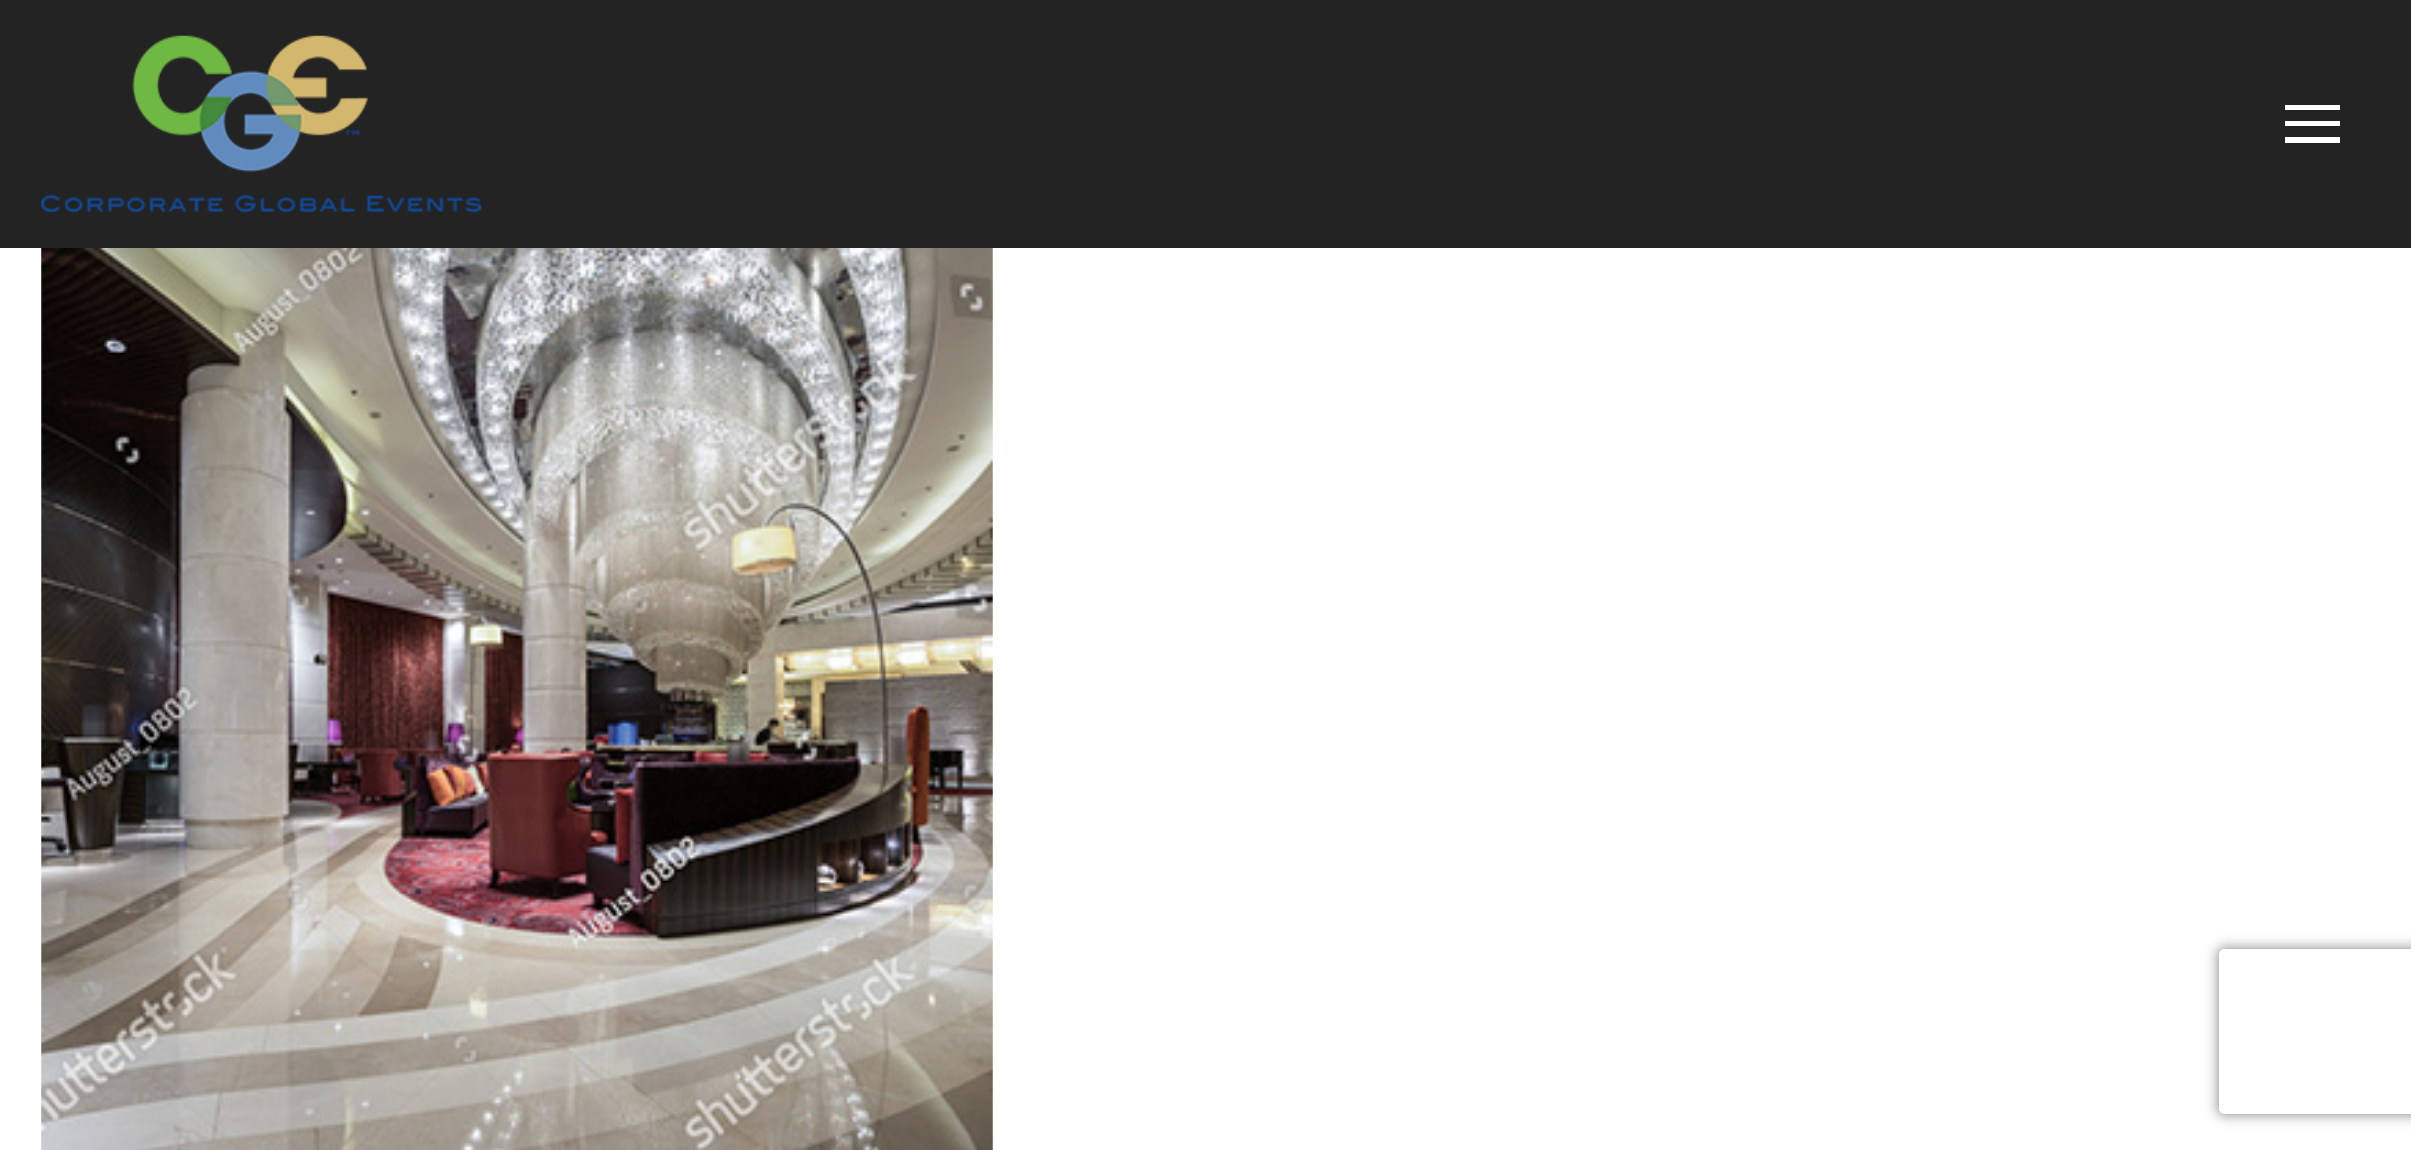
import math
import cairo

surface = cairo.ImageSurface(cairo.Format.RGB24, 2411, 1150)
ctx = cairo.Context(surface)
options = cairo.FontOptions()
options.set_hint_metrics(cairo.HintMetrics.OFF)
options.set_hint_style(cairo.HintStyle.NONE)
ctx.set_font_options(options)
ctx.set_miter_limit(4)


def ink(r, g, b):
    ctx.set_source_rgb(r / 255, g / 255, b / 255)


def block(x, y, w, h, *color):
    ink(*color)
    ctx.rectangle(x, y, w, h)
    ctx.fill()


def round_path(x, y, w, h, r):
    ctx.new_sub_path()
    for i, (u, v) in enumerate([(x + w - r, y + h - r), (x + r, y + h - r), (x + r, y + r), (x + w - r, y + r)]):
        ctx.arc(u, v, r, i * math.pi / 2, (i + 1) * math.pi / 2)
    ctx.close_path()


def blur_box(x, y, w, h, r, blur, alpha):
    ctx.push_group_with_content(cairo.Content.ALPHA)
    ctx.set_operator(cairo.Operator.SOURCE)
    for i in range(15, -16, -2):
        e = blur * i / 6
        if min(w, h) + 2 * e > 0:
            ctx.set_source_rgba(0, 0, 0, alpha * math.erfc((i - 1) / 8.5) / 2)
            round_path(x - e, y - e, w + 2 * e, h + 2 * e, max(0, min(r + e + blur * .6, min(w, h) / 2 + e)))
            ctx.fill()
    ctx.mask(ctx.pop_group())


def paste(path, x, y, w, h):
    ctx.save()
    ctx.set_source_surface(cairo.ImageSurface.create_from_png(path), x, y)
    ctx.rectangle(x, y, w, h)
    ctx.fill()
    ctx.restore()


ink(255, 255, 255)
ctx.paint()
block(0, 0, 2411, 248, 35, 35, 35)
paste("pic1.png", 41, 35, 441, 177)
ink(255, 255, 255)
ctx.new_path()
ctx.move_to(2285, 121)
ctx.line_to(2340, 121)
ctx.line_to(2340, 126)
ctx.line_to(2285, 126)
ctx.close_path()
ctx.move_to(2285, 105)
ctx.line_to(2340, 105)
ctx.line_to(2340, 110)
ctx.line_to(2285, 110)
ctx.close_path()
ctx.move_to(2285, 137)
ctx.line_to(2340, 137)
ctx.line_to(2340, 143)
ctx.line_to(2285, 143)
ctx.close_path()
ctx.fill()
paste("pic2.png", 41, 248, 952, 902)
ctx.save()
ctx.set_fill_rule(cairo.FillRule.EVEN_ODD)
ctx.new_path()
ctx.move_to(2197, 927)
ctx.line_to(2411, 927)
ctx.line_to(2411, 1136)
ctx.line_to(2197, 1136)
ctx.close_path()
ctx.move_to(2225, 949)
ctx.line_to(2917, 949)
ctx.curve_to(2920.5, 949, 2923, 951.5, 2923, 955)
ctx.line_to(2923, 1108)
ctx.curve_to(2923, 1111.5, 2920.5, 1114, 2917, 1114)
ctx.line_to(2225, 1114)
ctx.curve_to(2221.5, 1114, 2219, 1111.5, 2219, 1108)
ctx.line_to(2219, 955)
ctx.curve_to(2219, 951.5, 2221.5, 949, 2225, 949)
ctx.close_path()
ctx.clip()
ink(128, 128, 128)
blur_box(2219, 949, 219, 165, 6, 7, 1)
ctx.restore()
surface.write_to_png("screenshot.png")
